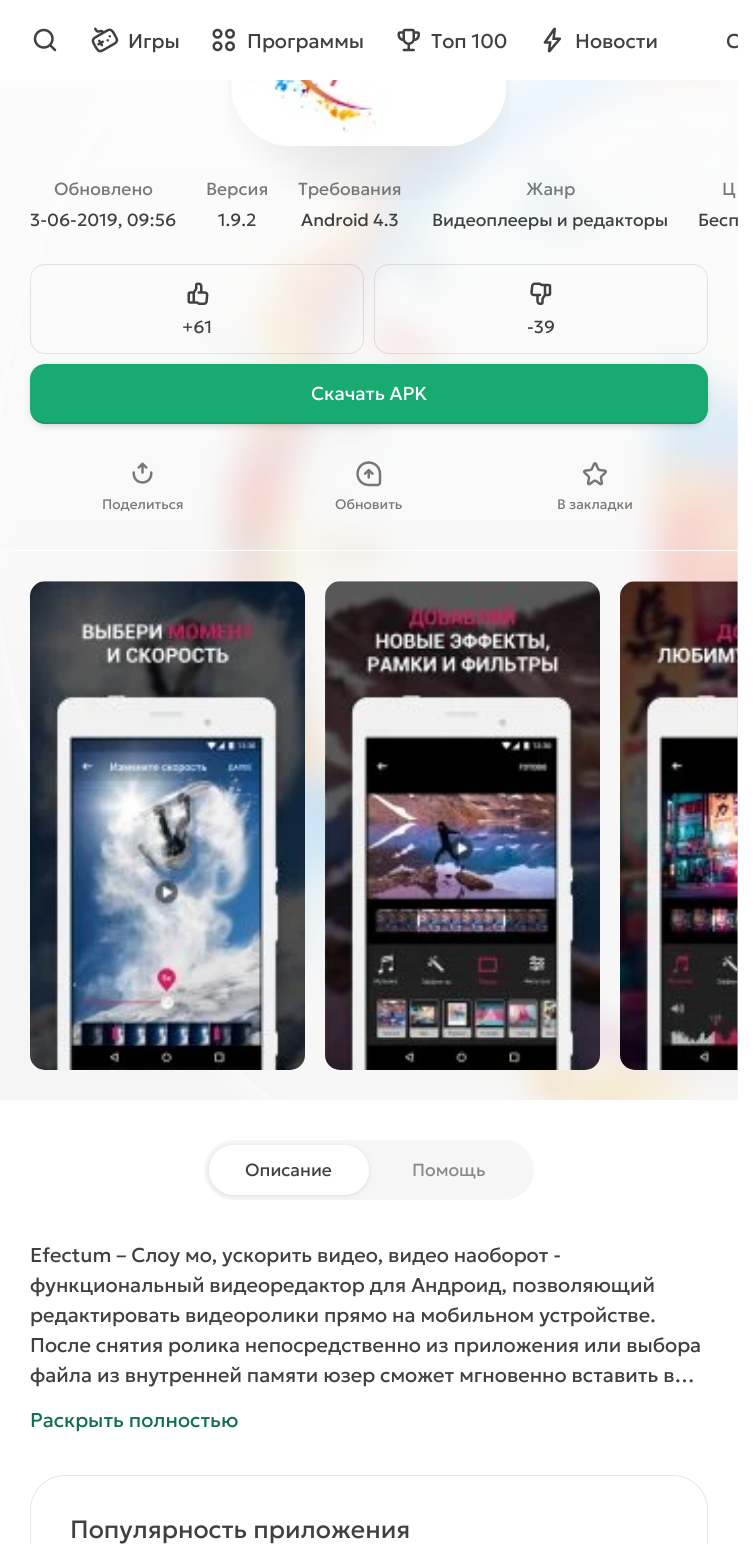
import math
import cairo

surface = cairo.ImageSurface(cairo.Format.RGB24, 756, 1544)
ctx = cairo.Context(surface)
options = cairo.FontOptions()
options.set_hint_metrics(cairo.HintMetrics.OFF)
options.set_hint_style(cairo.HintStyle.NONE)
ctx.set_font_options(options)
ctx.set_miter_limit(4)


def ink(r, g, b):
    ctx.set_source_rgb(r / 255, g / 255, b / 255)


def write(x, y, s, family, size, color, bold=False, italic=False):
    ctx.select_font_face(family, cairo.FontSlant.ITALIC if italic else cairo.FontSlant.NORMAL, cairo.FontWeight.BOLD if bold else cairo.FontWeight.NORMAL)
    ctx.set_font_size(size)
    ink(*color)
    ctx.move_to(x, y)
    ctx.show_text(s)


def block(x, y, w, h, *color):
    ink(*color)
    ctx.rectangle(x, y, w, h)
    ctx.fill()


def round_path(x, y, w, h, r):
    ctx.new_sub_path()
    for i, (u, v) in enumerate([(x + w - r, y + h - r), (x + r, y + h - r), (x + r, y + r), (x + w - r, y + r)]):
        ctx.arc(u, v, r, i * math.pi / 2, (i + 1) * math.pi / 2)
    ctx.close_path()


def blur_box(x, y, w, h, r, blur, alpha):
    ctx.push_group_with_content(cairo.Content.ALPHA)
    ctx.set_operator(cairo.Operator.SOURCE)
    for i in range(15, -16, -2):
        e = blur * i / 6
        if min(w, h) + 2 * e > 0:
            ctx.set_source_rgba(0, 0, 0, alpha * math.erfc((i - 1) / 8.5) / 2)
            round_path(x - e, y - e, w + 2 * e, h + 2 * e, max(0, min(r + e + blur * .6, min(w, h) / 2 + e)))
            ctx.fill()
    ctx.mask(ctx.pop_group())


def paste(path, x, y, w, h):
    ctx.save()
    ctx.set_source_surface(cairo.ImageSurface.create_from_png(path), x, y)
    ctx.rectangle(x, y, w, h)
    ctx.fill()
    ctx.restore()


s1 = dict(family="Geologica", size=20, color=(62, 65, 64))
s2 = dict(family="Geologica", size=17.5, color=(119, 121, 120))
s3 = dict(family="Geologica", size=17.5, color=(62, 65, 64))
s4 = dict(family="Geologica Thin", size=18.75, color=(255, 255, 255))
s5 = dict(family="Geologica", size=13.75, color=(119, 121, 120))
s6 = dict(family="Geologica", size=17.5, color=(135, 137, 136))
s7 = dict(family="Geologica", size=20, color=(15, 112, 75))
s8 = dict(family="Geologica Thin", size=25, color=(62, 65, 64))

ink(255, 255, 255)
ctx.paint()
block(0, 80, 738, 1020, 245, 245, 245)
paste("pic6.png", 0, 80, 738, 1020)
ctx.save()
ctx.rectangle(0, 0, 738, 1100)
ctx.clip()
round_path(-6, -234, 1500, 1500, 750)
ctx.clip()
ink(245, 245, 245)
blur_box(-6, -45, 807, 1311, 0, 15, 0.8)
ctx.restore()
block(134, 0, 604, 80, 255, 255, 255)
paste("pic1.png", 33, 28, 24, 24)
paste("pic2.png", 91, 27, 28, 26)
write(128, 48, "Игры", **s1)
paste("pic3.png", 212, 28, 23, 24)
write(247, 48, "Программы", **s1)
paste("pic4.png", 397, 28, 23, 24)
write(431, 48, "Топ 100", **s1)
paste("pic5.png", 543, 27, 19, 26)
write(575, 48, "Новости", **s1)
ctx.save()
ctx.rectangle(0, 10, 738, 60)
ctx.clip()
write(726, 48, "С", **s1)
ctx.restore()
gradient = cairo.LinearGradient(369, 1100, 369, -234)
gradient.add_color_stop_rgba(0.3, 1, 1, 1, 0)
gradient.add_color_stop_rgba(1, 1, 1, 1, 1)
ctx.set_source(gradient)
ctx.rectangle(0, 80, 738, 574)
ctx.fill()
gradient = cairo.RadialGradient(369, 57, 0, 369, 57, 160)
gradient.add_color_stop_rgba(0, 0, 0, 0, 0.2)
gradient.add_color_stop_rgba(1, 0, 0, 0, 0)
ctx.set_source(gradient)
ctx.rectangle(228, 80, 282, 120)
ctx.fill()
paste("pic7.png", 231, 80, 275, 66)
write(54, 195, "Обновлено", **s2)
write(30, 226, "3-06-2019, 09:56", **s3)
write(206, 195, "Версия", **s2)
write(218, 226, "1.9.2", **s3)
write(298, 195, "Требования", **s2)
write(301, 226, "Android 4.3", **s3)
write(526, 195, "Жанр", **s2)
write(432, 226, "Видеоплееры и редакторы", **s3)
write(722, 195, "Ц", **s2)
write(698, 226, "Бесп", **s3)
round_path(30.5, 264.5, 333, 89, 14.5)
ctx.set_source_rgba(0, 0, 0, 0.1)
ctx.set_line_width(1)
ctx.stroke()
paste("pic8.png", 187, 282, 22, 23)
write(182, 333, "+61", **s3)
round_path(374.5, 264.5, 333, 89, 14.5)
ctx.set_source_rgba(0, 0, 0, 0.1)
ctx.stroke()
paste("pic9.png", 530, 282, 22, 23)
write(527, 333, "-39", **s3)
ink(0, 0, 0)
blur_box(33, 369, 672, 55, 13, 4, 0.25)
ink(23, 171, 114)
round_path(30, 364, 678, 60, 15)
ctx.fill()
ctx.set_source_rgba(0, 0, 0, 0.1)
ctx.new_path()
ctx.move_to(30, 408)
ctx.line_to(30, 409)
ctx.curve_to(30, 417, 37, 424, 45, 424)
ctx.line_to(693, 424)
ctx.curve_to(701, 424, 708, 417, 708, 409)
ctx.line_to(708, 408)
ctx.curve_to(708, 416, 701, 422, 692, 422)
ctx.line_to(45, 422)
ctx.curve_to(37, 422, 30, 416, 30, 408)
ctx.close_path()
ctx.fill()
write(311, 400, "Скачать APK", **s4)
paste("pic10.png", 132, 462, 21, 22)
write(102, 509, "Поделиться", **s5)
paste("pic11.png", 356, 461, 26, 26)
write(335, 509, "Обновить", **s5)
paste("pic12.png", 583, 462, 24, 24)
write(557, 509, "В закладки", **s5)
block(0, 550, 738, 1, 255, 255, 255)
ctx.set_source_rgba(0.243, 0.255, 0.251, 0.1)
round_path(30, 581, 275, 489, 15)
ctx.fill()
paste("pic13.png", 30, 581, 275, 489)
round_path(325, 581, 275, 489, 15)
ctx.fill()
paste("pic14.png", 325, 581, 275, 489)
ctx.new_path()
ctx.move_to(635, 581)
ctx.line_to(738, 581)
ctx.line_to(738, 1070)
ctx.line_to(635, 1070)
ctx.curve_to(626.5, 1070, 620, 1063.5, 620, 1055)
ctx.line_to(620, 596)
ctx.curve_to(620, 587.5, 626.5, 581, 635, 581)
ctx.close_path()
ctx.fill()
paste("pic15.png", 620, 581, 118, 489)
ink(245, 246, 245)
round_path(204, 1140, 330, 60, 30)
ctx.fill()
ink(0, 0, 0)
blur_box(209, 1146, 160, 50, 25, 2.5, 0.1)
ink(255, 255, 255)
round_path(209, 1145, 160, 50, 25)
ctx.fill()
write(245, 1176, "Описание", **s3)
write(412, 1176, "Помощь", **s6)
write(30, 1262, "Efectum – Слоу мо, ускорить видео, видео наоборот -", **s1)
write(30, 1292, "функциональный видеоредактор для Андроид, позволяющий", **s1)
write(30, 1322, "редактировать видеоролики прямо на мобильном устройстве.", **s1)
write(30, 1352, "После снятия ролика непосредственно из приложения или выбора", **s1)
write(30, 1382, "файла из внутренней памяти юзер сможет мгновенно вставить в…", **s1)
write(30, 1427, "Раскрыть полностью", **s7)
round_path(30.5, 1475.5, 677, 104, 34.5)
ink(230, 230, 230)
ctx.stroke()
write(70, 1538, "Популярность приложения", **s8)
surface.write_to_png("screenshot.png")
